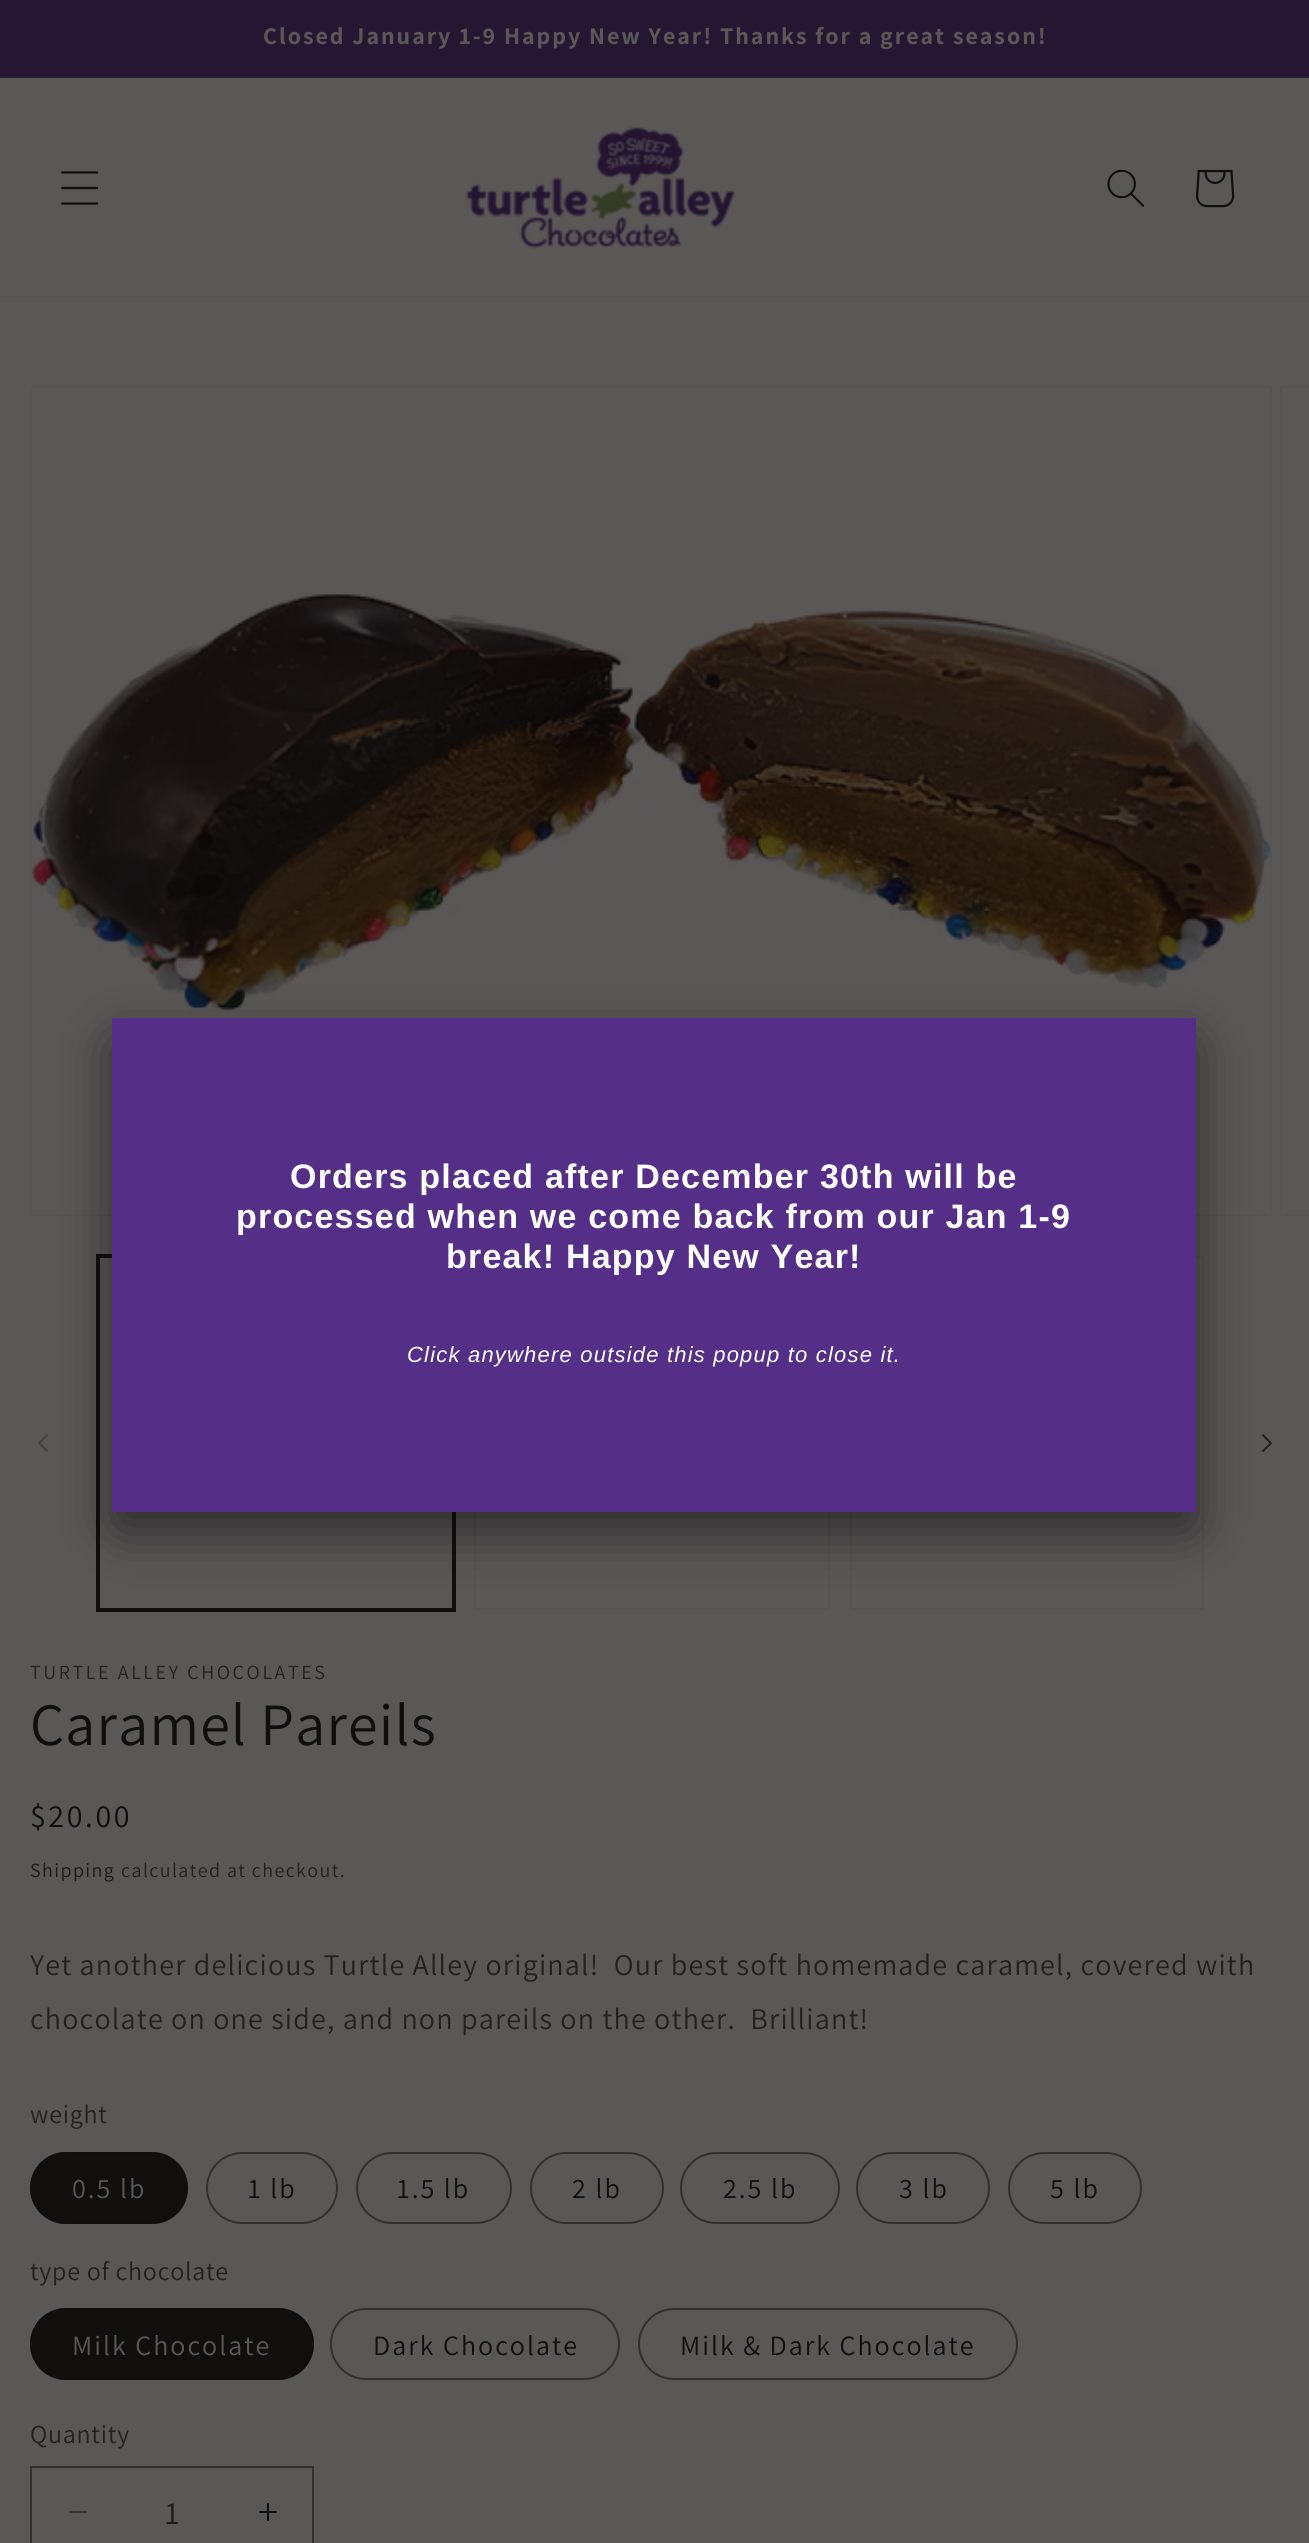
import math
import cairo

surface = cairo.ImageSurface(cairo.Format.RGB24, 1309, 2543)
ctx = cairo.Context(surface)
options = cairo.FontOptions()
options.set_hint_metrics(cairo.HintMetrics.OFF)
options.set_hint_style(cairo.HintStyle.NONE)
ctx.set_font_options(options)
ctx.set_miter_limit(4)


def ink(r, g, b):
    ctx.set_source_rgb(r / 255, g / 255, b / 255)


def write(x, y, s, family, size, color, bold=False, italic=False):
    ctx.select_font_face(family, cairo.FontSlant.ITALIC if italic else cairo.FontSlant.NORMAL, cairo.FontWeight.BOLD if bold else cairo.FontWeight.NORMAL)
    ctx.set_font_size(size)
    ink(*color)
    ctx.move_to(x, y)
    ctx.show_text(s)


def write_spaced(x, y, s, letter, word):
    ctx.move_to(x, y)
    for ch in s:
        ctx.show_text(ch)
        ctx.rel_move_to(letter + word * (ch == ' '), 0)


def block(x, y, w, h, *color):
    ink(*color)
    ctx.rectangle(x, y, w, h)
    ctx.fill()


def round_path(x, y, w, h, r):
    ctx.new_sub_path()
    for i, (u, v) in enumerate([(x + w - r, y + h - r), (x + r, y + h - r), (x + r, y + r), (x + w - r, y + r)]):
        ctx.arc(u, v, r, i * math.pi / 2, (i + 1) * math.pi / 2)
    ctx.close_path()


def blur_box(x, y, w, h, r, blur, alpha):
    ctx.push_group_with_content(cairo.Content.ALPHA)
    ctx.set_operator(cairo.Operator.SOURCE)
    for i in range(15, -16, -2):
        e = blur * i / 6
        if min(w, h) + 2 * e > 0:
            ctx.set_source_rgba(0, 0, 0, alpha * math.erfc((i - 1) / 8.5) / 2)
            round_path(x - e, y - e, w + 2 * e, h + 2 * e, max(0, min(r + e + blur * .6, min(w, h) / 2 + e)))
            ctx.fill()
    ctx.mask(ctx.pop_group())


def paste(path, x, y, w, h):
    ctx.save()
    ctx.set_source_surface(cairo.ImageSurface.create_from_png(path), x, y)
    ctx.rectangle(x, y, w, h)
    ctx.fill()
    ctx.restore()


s1 = dict(family="Assistant", size=32, color=(28, 25, 25))

ink(90, 87, 87)
ctx.paint()
gradient = cairo.LinearGradient(655, 0, 655, 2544)
gradient.add_color_stop_rgba(0.03, 0.145, 0.09, 0.196, 1)
gradient.add_color_stop_rgba(1, 0.129, 0.078, 0.165, 1)
ctx.set_source(gradient)
ctx.rectangle(0, 0, 1309, 76)
ctx.fill()
block(0, 76, 1309, 2, 42, 28, 53)
ctx.select_font_face("Assistant", cairo.FontSlant.NORMAL, cairo.FontWeight.BOLD)
ctx.set_font_size(24)
ink(90, 87, 87)
write_spaced(263, 44, "Closed January 1-9 Happy New Year! Thanks for a great season!", 2, 0)
block(0, 296, 1309, 2, 84, 81, 81)
paste("pic1.png", 61, 171, 38, 34)
paste("pic2.png", 465, 127, 270, 122)
paste("pic3.png", 1107, 169, 37, 38)
paste("pic4.png", 1196, 169, 39, 39)
ctx.rectangle(31, 387, 1240, 828)
ink(86, 84, 84)
ctx.stroke()
paste("pic5.png", 32, 594, 1238, 422)
paste("pic6.png", 38, 1434, 10, 18)
ctx.rectangle(97, 1255, 358, 356)
ink(17, 14, 14)
ctx.stroke()
ctx.rectangle(99, 1257, 354, 352)
ctx.stroke()
ctx.rectangle(475, 1257, 354, 352)
ink(86, 84, 84)
ctx.stroke()
ctx.rectangle(851, 1257, 352, 352)
ctx.stroke()
paste("pic7.png", 1261, 1434, 11, 18)
ink(0, 0, 0)
blur_box(112, 1038, 1084, 494, 8, 25, 0.5)
block(112, 1018, 1084, 494, 85, 46, 135)
ctx.select_font_face("Liberation Sans", cairo.FontSlant.NORMAL, cairo.FontWeight.BOLD)
ctx.set_font_size(34)
ink(255, 255, 255)
write_spaced(290, 1188, "Orders placed after December 30th will be", 1.2, 0)
write_spaced(236, 1228, "processed when we come back from our Jan 1-9", 1.2, 0)
write_spaced(446, 1268, "break! Happy New Year!", 1.2, 0)
ctx.select_font_face("Liberation Sans", cairo.FontSlant.ITALIC)
ctx.set_font_size(22)
write_spaced(407, 1362, "Click anywhere outside this popup to close it.", 1.2, 0)
ctx.rectangle(1281, 387, 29, 828)
ink(86, 84, 84)
ctx.stroke()
ctx.select_font_face("Assistant")
ctx.set_font_size(20)
ink(35, 32, 32)
write_spaced(30, 1679, "TURTLE ALLEY CHOCOLATES", 2.6, 0)
ctx.set_font_size(60)
ink(17, 14, 14)
write_spaced(30, 1745, "Caramel Pareils", 1.2, 0)
ctx.set_font_size(32)
write_spaced(30, 1827, "$20.00", 2.6, 0)
ctx.set_font_size(20)
ink(28, 25, 25)
write_spaced(30, 1877, "Shipping", 1.4, 0)
ink(35, 32, 32)
write_spaced(121, 1877, "calculated at checkout.", 1.4, 0)
ctx.set_font_size(30)
write_spaced(30, 1975, "Yet another delicious Turtle Alley original!  Our best soft homemade caramel, covered with", 1.2, 0)
write_spaced(30, 2029, "chocolate on one side, and non pareils on the other.  Brilliant!", 1.2, 0)
ctx.set_font_size(26)
write_spaced(30, 2123, "weight", 0.75, 0)
ink(17, 14, 14)
round_path(30, 2152, 158, 72, 36)
ctx.fill()
round_path(31, 2153, 156, 70, 35)
ctx.set_source_rgba(0.067, 0.055, 0.055, 0.55)
ctx.stroke()
ctx.set_font_size(28)
ink(90, 87, 87)
write_spaced(72, 2198, "0.5 lb", 2, 0)
round_path(207, 2153, 130, 70, 35)
ink(50, 47, 47)
ctx.stroke()
ink(17, 14, 14)
write_spaced(248, 2198, "1 lb", 2, 0)
round_path(357, 2153, 154, 70, 35)
ink(50, 47, 47)
ctx.stroke()
ink(17, 14, 14)
write_spaced(397, 2198, "1.5 lb", 2, 0)
round_path(531, 2153, 132, 70, 35)
ink(50, 47, 47)
ctx.stroke()
ink(17, 14, 14)
write_spaced(572, 2198, "2 lb", 2, 0)
round_path(681, 2153, 158, 70, 35)
ink(50, 47, 47)
ctx.stroke()
ink(17, 14, 14)
write_spaced(723, 2198, "2.5 lb", 2, 0)
round_path(857, 2153, 132, 70, 35)
ink(50, 47, 47)
ctx.stroke()
ink(17, 14, 14)
write_spaced(899, 2198, "3 lb", 2, 0)
round_path(1009, 2153, 132, 70, 35)
ink(50, 47, 47)
ctx.stroke()
ink(17, 14, 14)
write_spaced(1050, 2198, "5 lb", 2, 0)
ctx.set_font_size(26)
ink(35, 32, 32)
write_spaced(30, 2280, "type of chocolate", 0.75, 0)
ink(17, 14, 14)
round_path(30, 2308, 284, 72, 36)
ctx.fill()
round_path(31, 2309, 282, 70, 35)
ctx.set_source_rgba(0.067, 0.055, 0.055, 0.55)
ctx.stroke()
ctx.set_font_size(28)
ink(90, 87, 87)
write_spaced(72, 2355, "Milk Chocolate", 2, 0)
round_path(331, 2309, 288, 70, 35)
ink(50, 47, 47)
ctx.stroke()
ink(17, 14, 14)
write_spaced(373, 2355, "Dark Chocolate", 2, 0)
round_path(639, 2309, 378, 70, 35)
ink(50, 47, 47)
ctx.stroke()
ink(17, 14, 14)
write_spaced(680, 2355, "Milk & Dark Chocolate", 2, 0)
ctx.set_font_size(26)
ink(35, 32, 32)
write_spaced(30, 2443, "Quantity", 0.75, 0)
paste("pic8.png", 69, 2511, 18, 2)
paste("pic9.png", 259, 2503, 18, 18)
ctx.rectangle(31, 2467, 282, 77)
ink(50, 47, 47)
ctx.stroke()
write(165, 2524, "1", **s1)
surface.write_to_png("screenshot.png")
